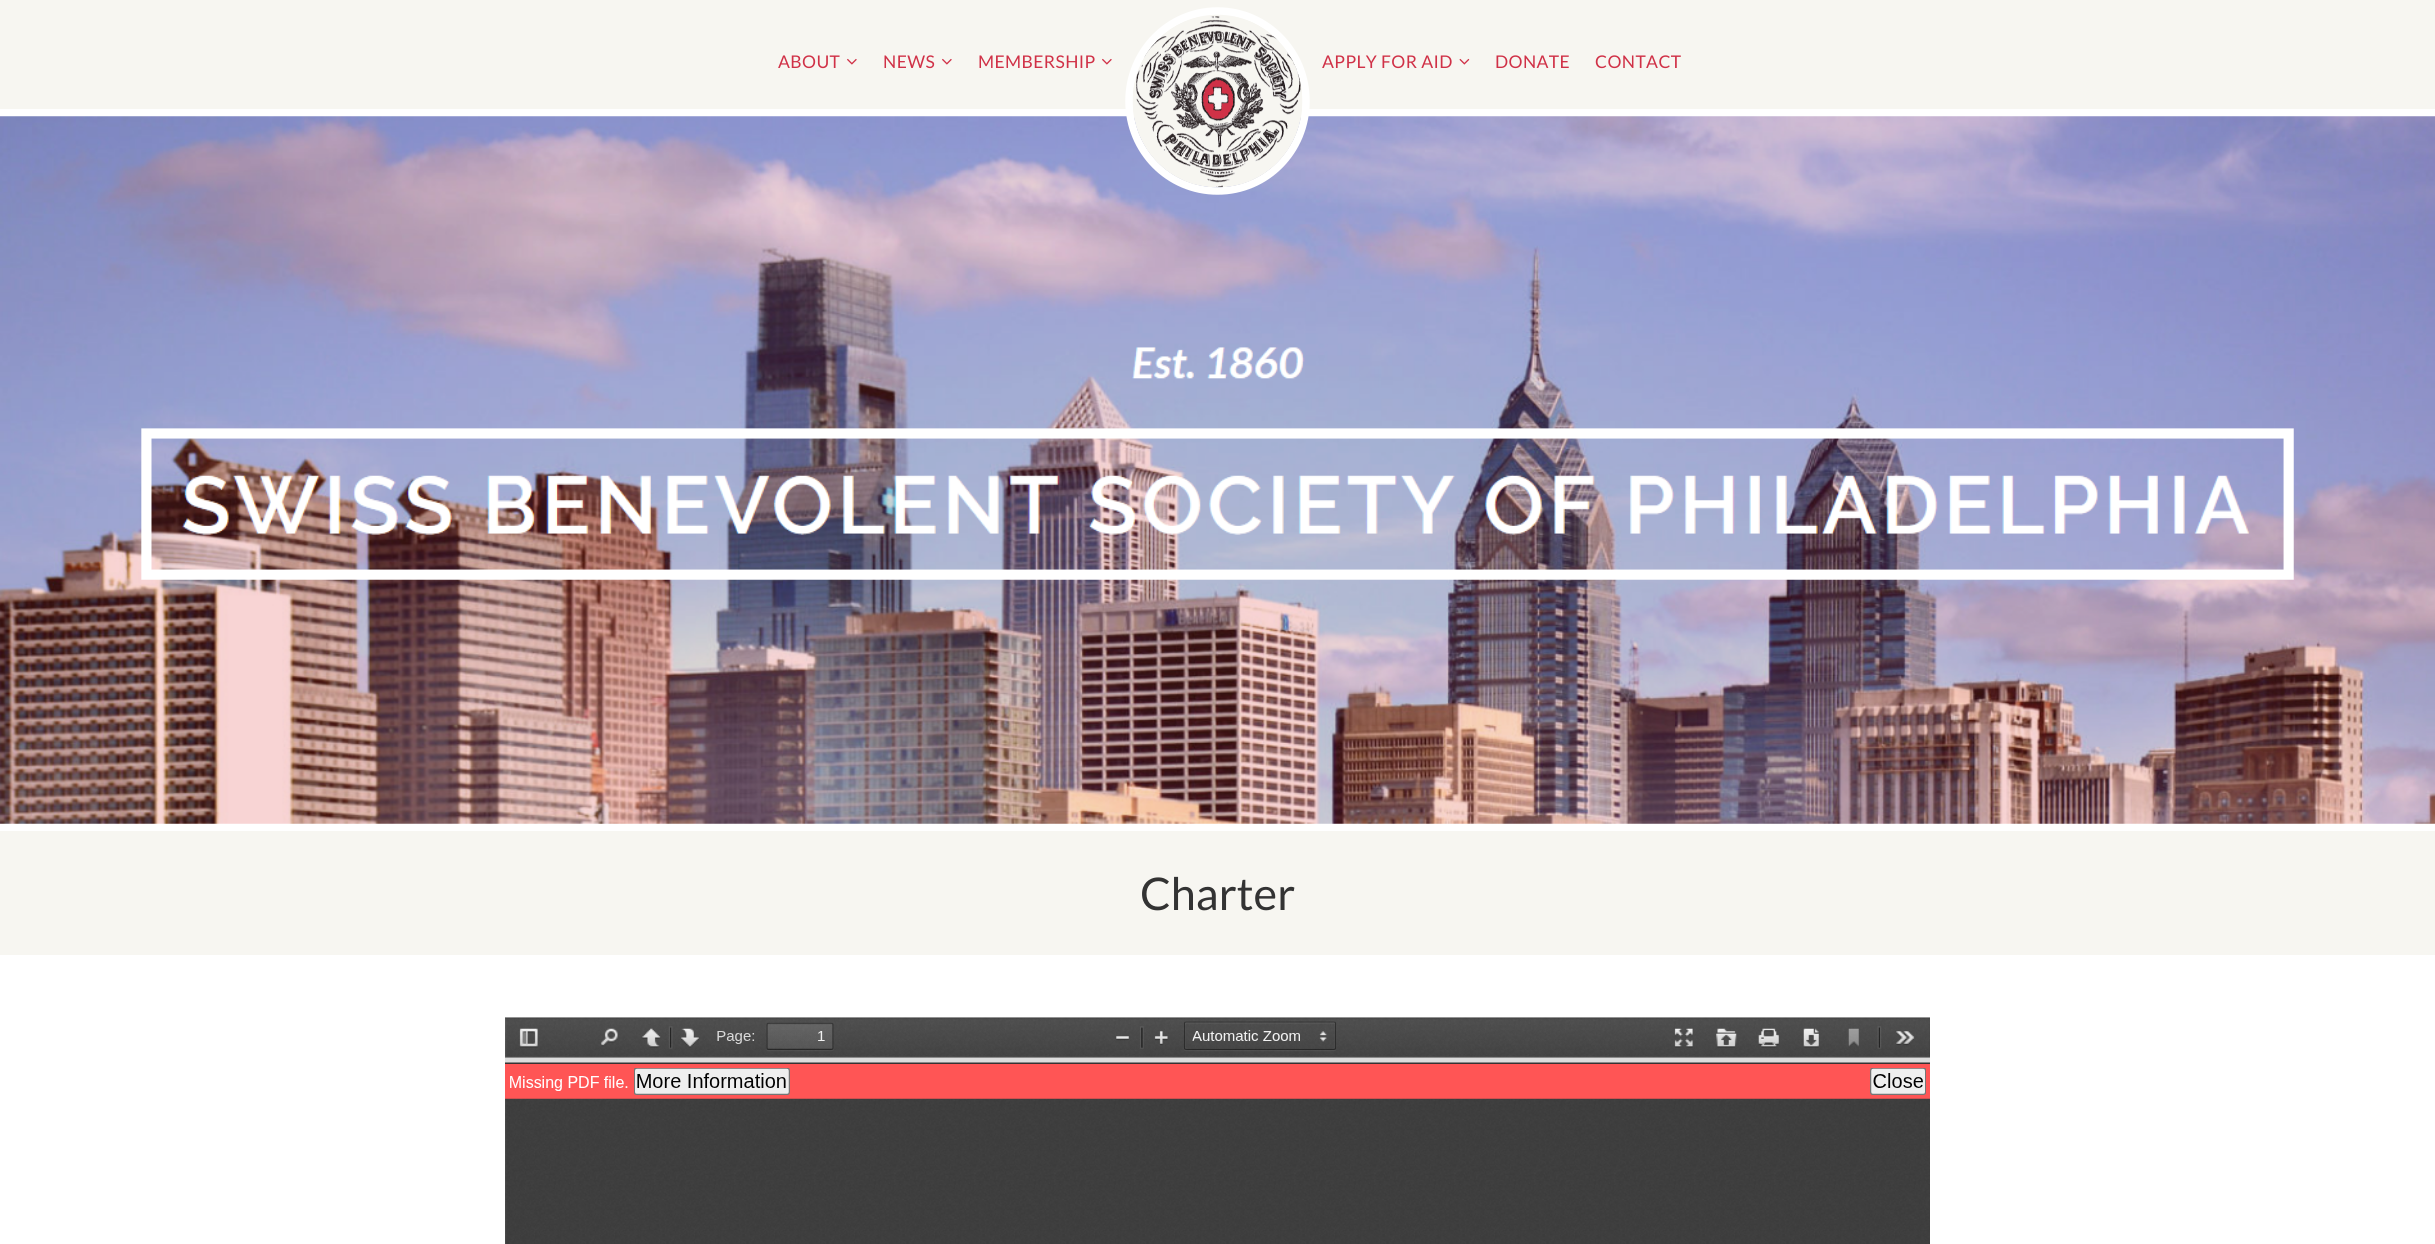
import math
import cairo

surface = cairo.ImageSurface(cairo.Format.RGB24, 2435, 1244)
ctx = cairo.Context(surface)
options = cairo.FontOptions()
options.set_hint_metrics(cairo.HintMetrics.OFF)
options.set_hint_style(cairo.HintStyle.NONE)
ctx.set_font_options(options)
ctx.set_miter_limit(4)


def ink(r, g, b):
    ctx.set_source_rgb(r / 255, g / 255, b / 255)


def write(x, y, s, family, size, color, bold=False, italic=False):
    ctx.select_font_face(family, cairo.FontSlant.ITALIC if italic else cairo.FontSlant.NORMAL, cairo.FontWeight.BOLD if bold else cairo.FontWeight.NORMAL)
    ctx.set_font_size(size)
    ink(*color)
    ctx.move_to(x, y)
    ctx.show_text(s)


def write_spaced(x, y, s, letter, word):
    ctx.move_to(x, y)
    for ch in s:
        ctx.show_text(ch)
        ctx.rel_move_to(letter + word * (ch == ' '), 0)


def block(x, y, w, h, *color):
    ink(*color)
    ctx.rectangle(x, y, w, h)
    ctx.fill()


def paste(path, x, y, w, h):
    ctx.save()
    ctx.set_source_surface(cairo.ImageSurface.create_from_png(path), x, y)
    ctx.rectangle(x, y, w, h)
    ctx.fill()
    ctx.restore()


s1 = dict(family="Lato", size=45, color=(51, 51, 51))

ink(255, 255, 255)
ctx.paint()
block(0, 0, 2435, 109, 247, 246, 241)
ctx.select_font_face("Lato")
ctx.set_font_size(17.5)
ink(208, 49, 71)
write_spaced(778, 68, "ABOUT", 0.4, 0)
paste("pic1.png", 847, 58, 10, 7)
write_spaced(883, 68, "NEWS", 0.4, 0)
paste("pic1.png", 942, 58, 10, 7)
write_spaced(978, 68, "MEMBERSHIP", 0.4, 0)
paste("pic1.png", 1102, 58, 10, 7)
paste("pic4.png", 0, 116, 2435, 708)
ctx.new_path()
ctx.move_to(1217.5, 11)
ctx.curve_to(1266.5, 11, 1306, 51.5, 1306, 101)
ctx.curve_to(1306, 151, 1266.5, 191, 1217.5, 191)
ctx.curve_to(1168.5, 191, 1129, 151, 1129, 101)
ctx.curve_to(1129, 51.5, 1168.5, 11, 1217.5, 11)
ctx.close_path()
ink(255, 255, 255)
ctx.set_line_width(7.5)
ctx.stroke()
paste("pic2.png", 1133, 16, 169, 172)
ink(208, 49, 71)
write_spaced(1322, 68, "APPLY FOR AID", 0.4, 0)
paste("pic3.png", 1459, 58, 11, 7)
write_spaced(1495, 68, "DONATE", 0.4, 0)
write_spaced(1595, 68, "CONTACT", 0.4, 0)
block(0, 831, 2435, 124, 247, 246, 241)
write(1140, 910, "Charter", **s1)
paste("pic5.png", 505, 1017, 1425, 227)
surface.write_to_png("screenshot.png")
